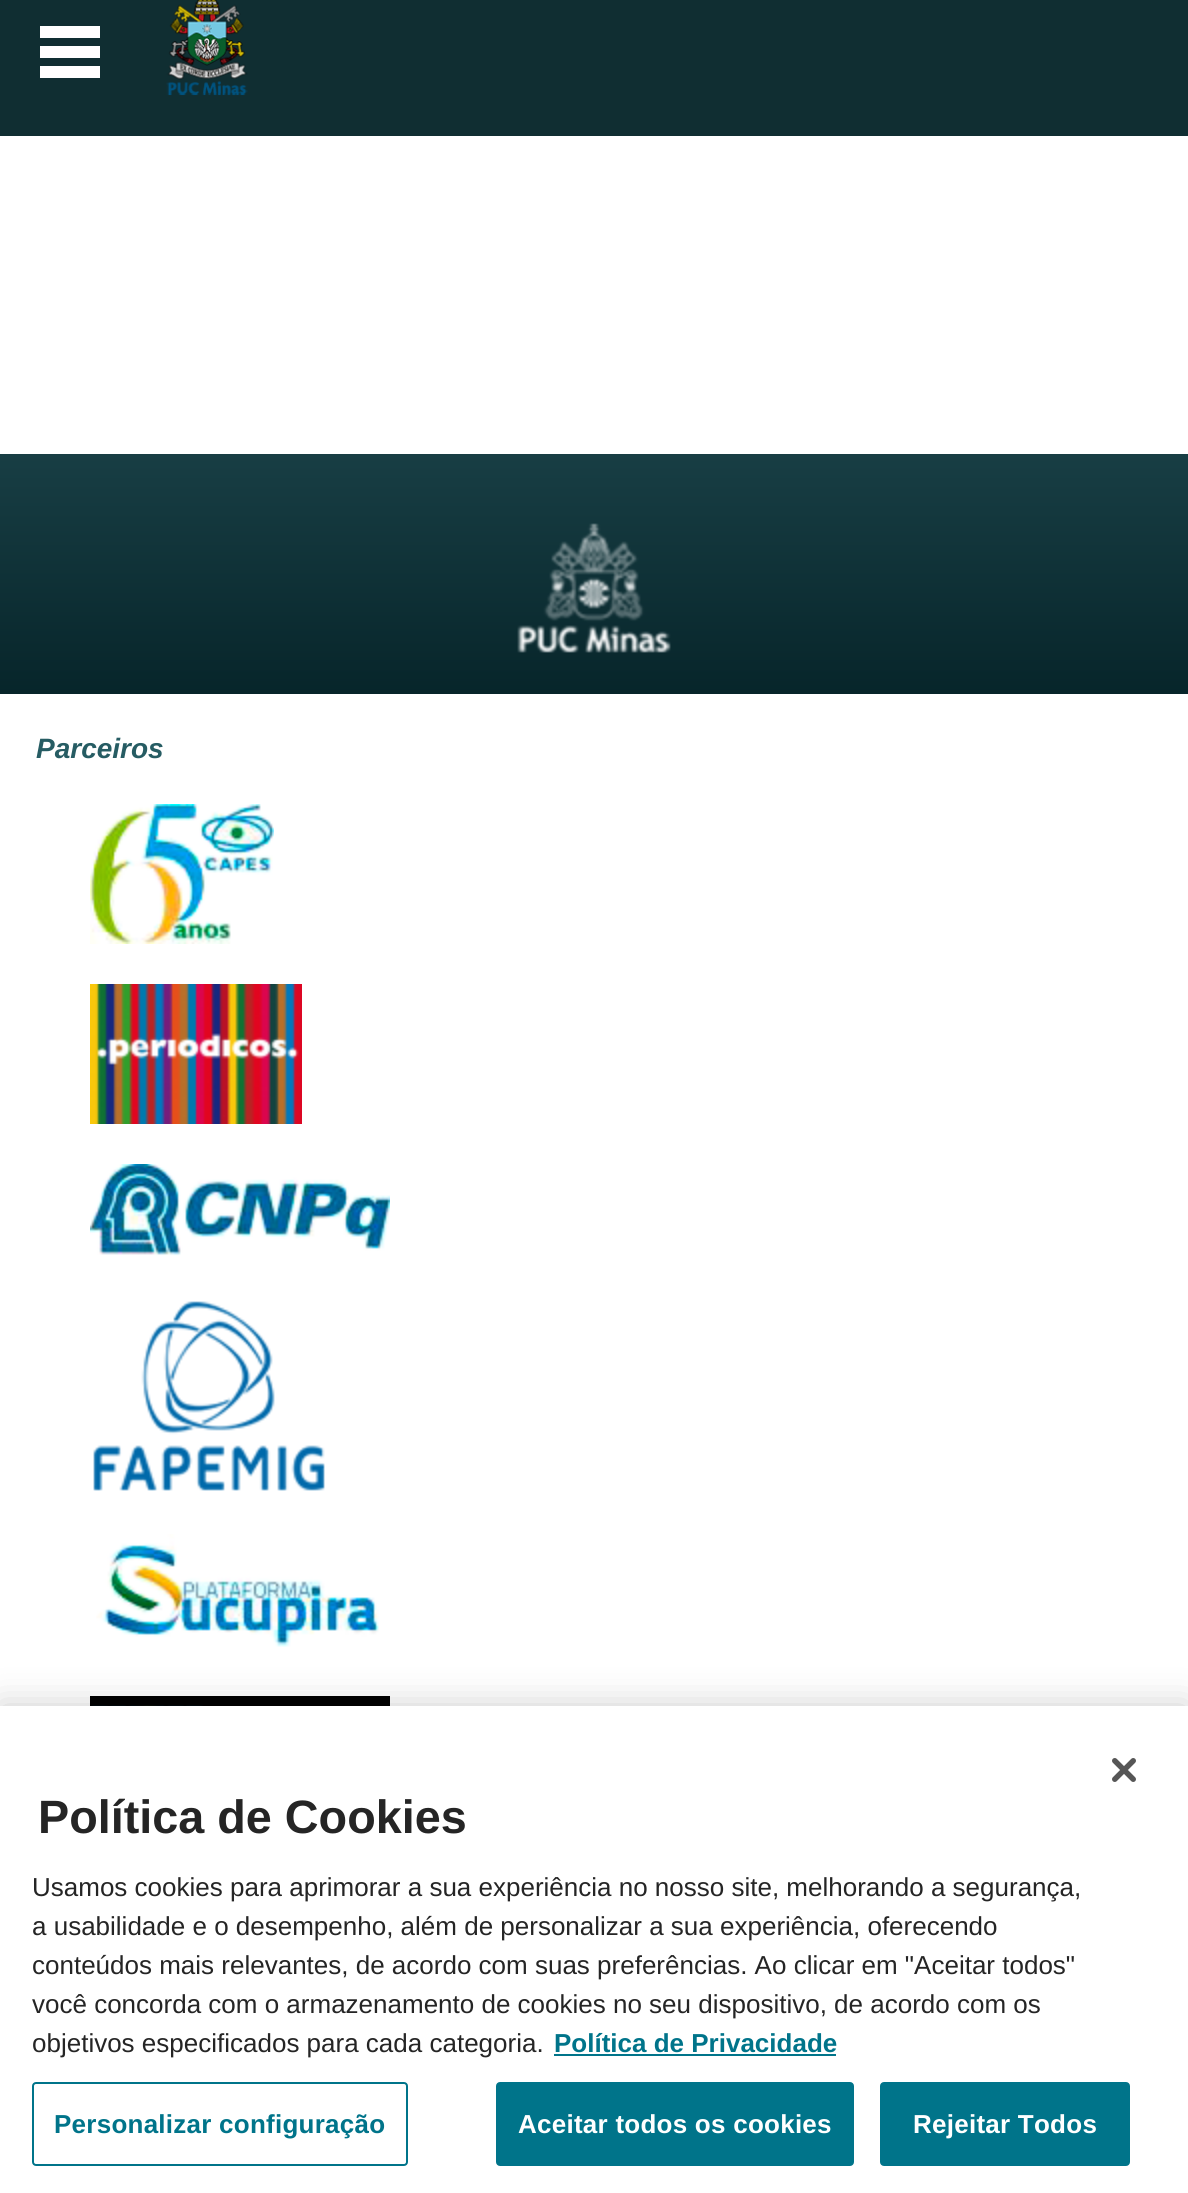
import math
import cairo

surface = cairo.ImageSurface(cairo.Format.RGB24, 1188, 2193)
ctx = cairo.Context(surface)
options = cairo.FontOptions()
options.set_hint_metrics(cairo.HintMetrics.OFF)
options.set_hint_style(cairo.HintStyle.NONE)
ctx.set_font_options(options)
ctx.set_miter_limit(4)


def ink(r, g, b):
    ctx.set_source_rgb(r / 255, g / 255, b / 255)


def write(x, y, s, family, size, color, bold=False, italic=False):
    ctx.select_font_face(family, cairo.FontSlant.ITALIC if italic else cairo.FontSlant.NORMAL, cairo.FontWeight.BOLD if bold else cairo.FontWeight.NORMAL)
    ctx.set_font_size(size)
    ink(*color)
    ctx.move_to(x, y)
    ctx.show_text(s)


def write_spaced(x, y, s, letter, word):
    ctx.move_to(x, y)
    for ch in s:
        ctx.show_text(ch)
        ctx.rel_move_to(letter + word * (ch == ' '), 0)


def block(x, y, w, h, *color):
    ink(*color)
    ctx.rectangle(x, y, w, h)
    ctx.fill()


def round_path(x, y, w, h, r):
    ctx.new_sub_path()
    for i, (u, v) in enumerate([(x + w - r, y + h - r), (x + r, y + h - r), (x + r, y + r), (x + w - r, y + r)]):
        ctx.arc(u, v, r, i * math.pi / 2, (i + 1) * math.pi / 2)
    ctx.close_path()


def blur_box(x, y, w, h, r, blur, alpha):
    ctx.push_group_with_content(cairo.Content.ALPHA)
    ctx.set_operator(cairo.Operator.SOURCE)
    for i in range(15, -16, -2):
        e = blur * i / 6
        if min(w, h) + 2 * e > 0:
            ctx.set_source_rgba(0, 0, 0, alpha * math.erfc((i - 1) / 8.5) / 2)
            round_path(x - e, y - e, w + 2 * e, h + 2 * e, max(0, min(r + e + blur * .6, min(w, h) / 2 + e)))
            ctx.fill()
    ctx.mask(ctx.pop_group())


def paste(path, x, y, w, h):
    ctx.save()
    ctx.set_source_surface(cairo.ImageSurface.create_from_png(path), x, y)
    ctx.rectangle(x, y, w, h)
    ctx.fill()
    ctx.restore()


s1 = dict(family="Liberation Sans", size=28, color=(38, 92, 99), bold=True, italic=True)
s2 = dict(family="Liberation Sans", size=46.75, color=(37, 37, 37), bold=True)
s3 = dict(family="Liberation Sans", size=26, color=(37, 37, 37))
s4 = dict(family="Liberation Sans", size=26, color=(0, 116, 138), bold=True)

ink(255, 255, 255)
ctx.paint()
block(0, 0, 1188, 136, 16, 46, 50)
block(40, 26, 60, 12, 255, 255, 255)
block(40, 46, 60, 12, 255, 255, 255)
block(40, 66, 60, 12, 255, 255, 255)
paste("pic1.png", 166, 0, 82, 96)
gradient = cairo.LinearGradient(594, 454, 594, 694)
gradient.add_color_stop_rgba(0, 0.094, 0.243, 0.267, 1)
gradient.add_color_stop_rgba(1, 0.027, 0.145, 0.165, 1)
ctx.set_source(gradient)
ctx.rectangle(0, 454, 1188, 240)
ctx.fill()
paste("pic2.png", 517, 523, 154, 130)
write(36, 758, "Parceiros", **s1)
paste("pic3.png", 90, 804, 184, 140)
paste("pic4.png", 90, 984, 212, 140)
paste("pic5.png", 90, 1164, 300, 92)
paste("pic6.png", 93, 1301, 232, 190)
paste("pic7.png", 96, 1534, 283, 113)
paste("pic8.png", 90, 1696, 300, 10)
ink(0, 0, 0)
blur_box(0, 1706, 1188, 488, 0, 18, 0.2)
block(0, 1706, 1188, 487, 255, 255, 255)
paste("pic9.png", 1112, 1758, 24, 24)
write(38, 1833, "Política de Cookies", **s2)
write(32, 1896, "Usamos cookies para aprimorar a sua experiência no nosso site, melhorando a segurança,", **s3)
write(32, 1935, "a usabilidade e o desempenho, além de personalizar a sua experiência, oferecendo", **s3)
write(32, 1974, "conteúdos mais relevantes, de acordo com suas preferências. Ao clicar em \"Aceitar todos\"", **s3)
write(32, 2013, "você concorda com o armazenamento de cookies no seu dispositivo, de acordo com os", **s3)
write(32, 2052, "objetivos especificados para cada categoria.", **s3)
write(554, 2052, "Política de Privacidade", **s4)
block(554, 2054, 282, 2, 0, 116, 138)
round_path(33, 2083, 374, 82, 3)
ctx.stroke()
write_spaced(54, 2133, "Personalizar configuração", 0.25, 0)
round_path(497, 2083, 356, 82, 3)
ctx.fill_preserve()
ctx.stroke()
ink(255, 255, 255)
write_spaced(518, 2133, "Aceitar todos os cookies", 0.25, 0)
ink(0, 116, 138)
round_path(881, 2083, 248, 82, 3)
ctx.fill_preserve()
ctx.stroke()
ink(255, 255, 255)
write_spaced(913, 2133, "Rejeitar Todos", 0.25, 0)
surface.write_to_png("screenshot.png")
